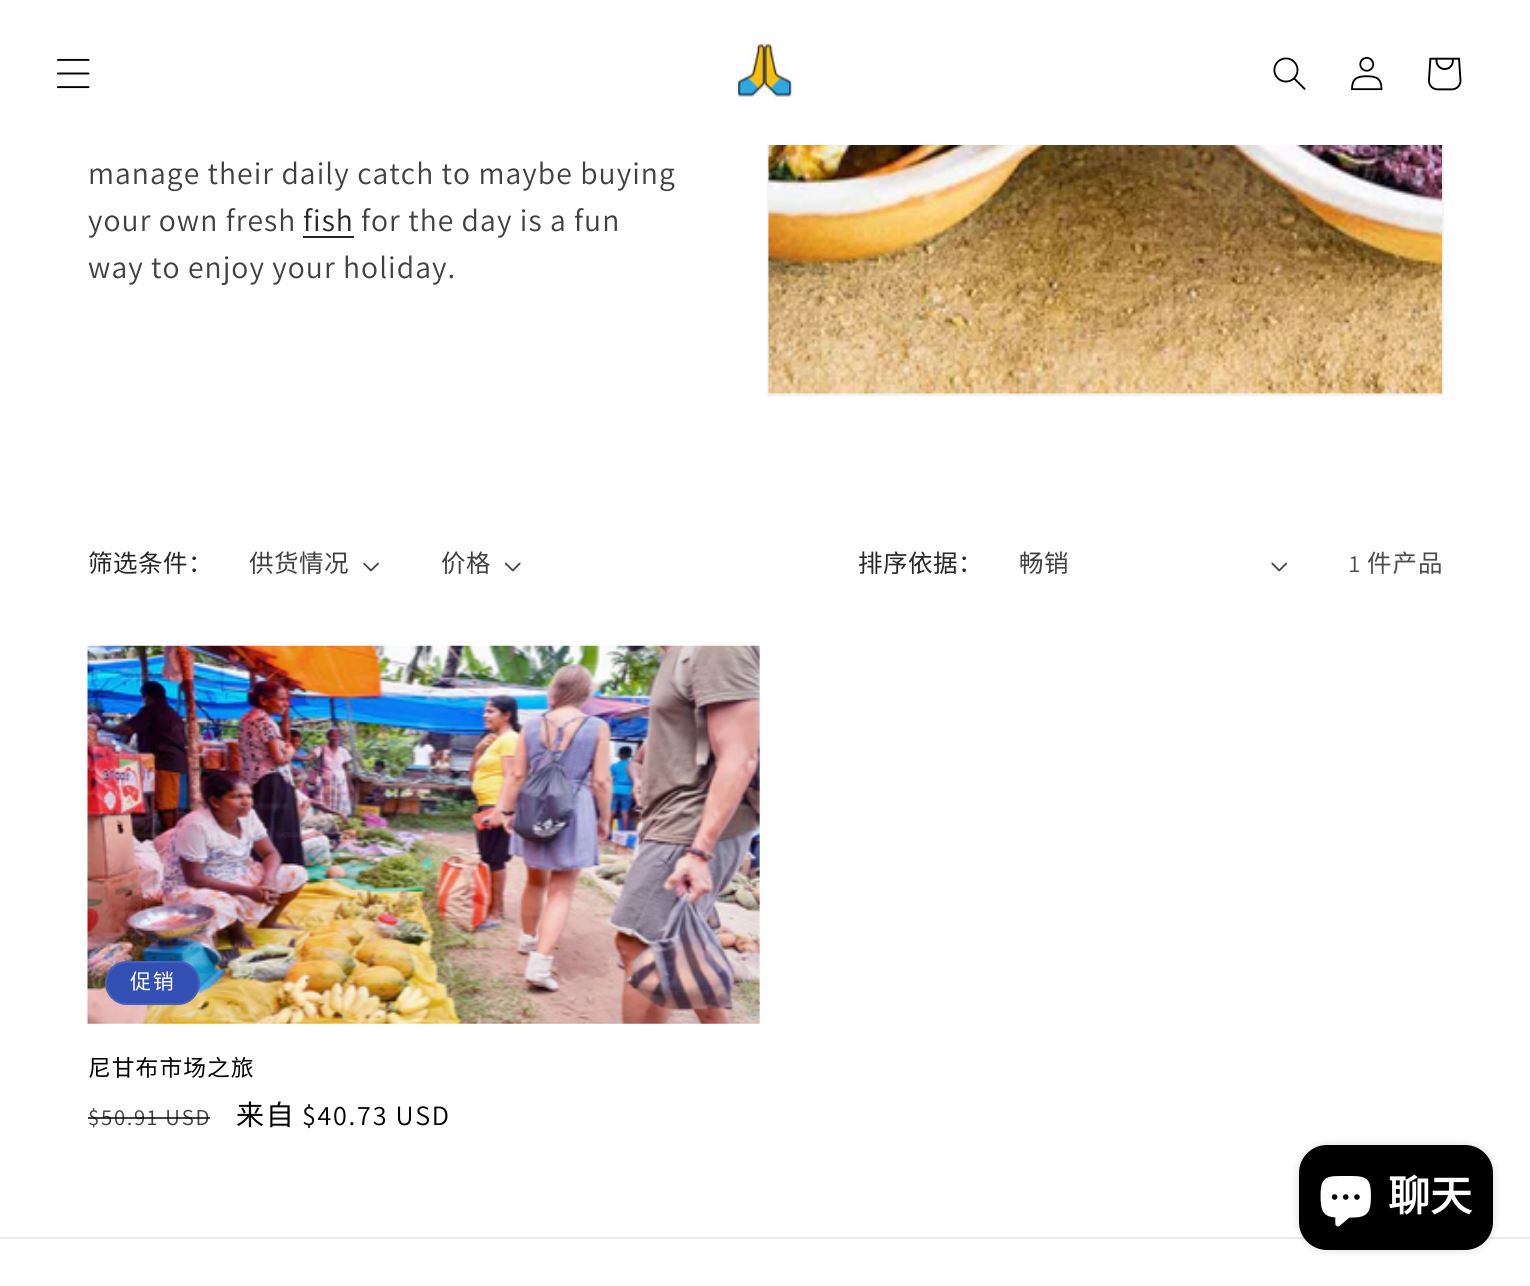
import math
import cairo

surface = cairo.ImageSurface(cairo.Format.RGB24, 1530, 1286)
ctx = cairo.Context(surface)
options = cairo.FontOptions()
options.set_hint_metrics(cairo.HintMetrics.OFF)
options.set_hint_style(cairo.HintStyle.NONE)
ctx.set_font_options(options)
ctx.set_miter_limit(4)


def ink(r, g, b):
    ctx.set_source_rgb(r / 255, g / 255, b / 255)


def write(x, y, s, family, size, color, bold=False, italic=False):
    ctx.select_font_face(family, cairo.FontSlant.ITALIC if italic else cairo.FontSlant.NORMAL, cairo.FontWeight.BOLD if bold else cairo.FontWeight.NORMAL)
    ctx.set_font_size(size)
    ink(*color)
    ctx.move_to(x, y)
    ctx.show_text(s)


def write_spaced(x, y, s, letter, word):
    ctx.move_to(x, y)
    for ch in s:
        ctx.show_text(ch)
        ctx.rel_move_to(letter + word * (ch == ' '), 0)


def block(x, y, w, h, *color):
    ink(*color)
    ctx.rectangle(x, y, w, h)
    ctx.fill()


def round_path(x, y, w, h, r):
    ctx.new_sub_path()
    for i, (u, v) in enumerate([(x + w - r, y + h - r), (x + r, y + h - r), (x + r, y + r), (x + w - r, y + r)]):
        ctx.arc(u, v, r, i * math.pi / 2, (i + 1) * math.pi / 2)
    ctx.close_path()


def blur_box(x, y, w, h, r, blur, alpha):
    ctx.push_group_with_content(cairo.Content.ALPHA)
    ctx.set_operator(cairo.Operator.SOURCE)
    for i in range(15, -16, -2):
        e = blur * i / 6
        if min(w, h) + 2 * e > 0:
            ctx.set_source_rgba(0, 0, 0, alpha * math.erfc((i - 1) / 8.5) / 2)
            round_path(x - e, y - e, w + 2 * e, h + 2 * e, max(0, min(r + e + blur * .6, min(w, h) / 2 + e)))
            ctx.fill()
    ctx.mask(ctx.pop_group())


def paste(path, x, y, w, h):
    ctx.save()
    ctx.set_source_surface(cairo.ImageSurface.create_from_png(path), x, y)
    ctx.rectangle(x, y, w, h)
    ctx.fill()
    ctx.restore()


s1 = dict(family="Noto Sans CJK SC", size=42, color=(255, 255, 255), bold=True)

ink(255, 255, 255)
ctx.paint()
ctx.rectangle(768, -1, 675, 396)
ink(242, 242, 242)
ctx.stroke()
block(767, 0, 677, 145, 255, 255, 255)
paste("pic1.png", 57, 58, 33, 31)
paste("pic2.png", 737, 41, 58, 60)
paste("pic3.png", 1273, 57, 33, 33)
paste("pic4.png", 1351, 56, 32, 35)
paste("pic5.png", 1428, 57, 34, 34)
ctx.select_font_face("Assistant")
ctx.set_font_size(31.5)
ink(64, 64, 64)
write_spaced(88, 184, "manage their daily catch to maybe buying", 1.05, 0)
write_spaced(88, 231, "your own fresh", 1.05, 0)
ink(38, 38, 38)
write_spaced(303, 231, "fish", 1.05, 0)
block(303, 236, 51, 2, 38, 38, 38)
ink(64, 64, 64)
write_spaced(361, 231, "for the day is a fun", 1.05, 0)
write_spaced(88, 278, "way to enjoy your holiday.", 1.05, 0)
paste("pic6.png", 768, 145, 674, 249)
ctx.select_font_face("Noto Sans CJK SC")
ctx.set_font_size(24.5)
ink(38, 38, 38)
write_spaced(88, 572, "筛选条件：", 0.5, 0)
ink(64, 64, 64)
write_spaced(249, 572, "供货情况", 0.5, 0)
paste("pic7.png", 363, 562, 16, 10)
write_spaced(441, 572, "价格", 0.5, 0)
paste("pic8.png", 504, 562, 17, 10)
ink(38, 38, 38)
write_spaced(858, 572, "排序依据：", 0.5, 0)
ink(64, 64, 64)
write_spaced(1019, 572, "畅销", 0.5, 0)
paste("pic9.png", 1271, 562, 17, 10)
ctx.select_font_face("Assistant")
ink(77, 77, 77)
write_spaced(1349, 572, "1", 1.05, 0)
ctx.select_font_face("Noto Sans CJK SC")
write_spaced(1367, 572, "件产品", 1.05, 0)
block(88, 646, 672, 378, 252, 252, 252)
paste("pic10.png", 87, 645, 673, 379)
ink(51, 79, 180)
round_path(105, 961, 95, 44, 22)
ctx.fill()
round_path(106, 962, 93, 42, 21)
ctx.set_source_rgba(1, 1, 1, 0.1)
ctx.stroke()
ctx.set_font_size(21)
ink(255, 255, 255)
write_spaced(130, 989, "促销", 1.75, 0)
ctx.set_font_size(22.75)
ink(0, 0, 0)
write_spaced(88, 1076, "尼甘布市场之旅", 1.05, 0)
ctx.select_font_face("Assistant")
ink(64, 64, 64)
write_spaced(88, 1125, "$50.91 USD", 1.75, 0)
ctx.set_source_rgba(0, 0, 0, 0.75)
ctx.rectangle(88, 1117, 122, 2)
ctx.fill()
ctx.select_font_face("Noto Sans CJK SC")
ctx.set_font_size(28)
ink(0, 0, 0)
write_spaced(236, 1125, "来自", 1.75, 0)
ctx.select_font_face("Assistant")
write_spaced(302, 1125, "$40.73 USD", 1.75, 0)
block(0, 1237, 1530, 2, 235, 235, 235)
ink(0, 0, 0)
blur_box(1299, 1145, 194, 105, 28, 4.5, 0.15)
ink(0, 0, 0)
round_path(1299, 1145, 194, 105, 28)
ctx.fill()
paste("pic11.png", 1320, 1176, 51, 51)
write(1388, 1211, "聊天", **s1)
surface.write_to_png("screenshot.png")
